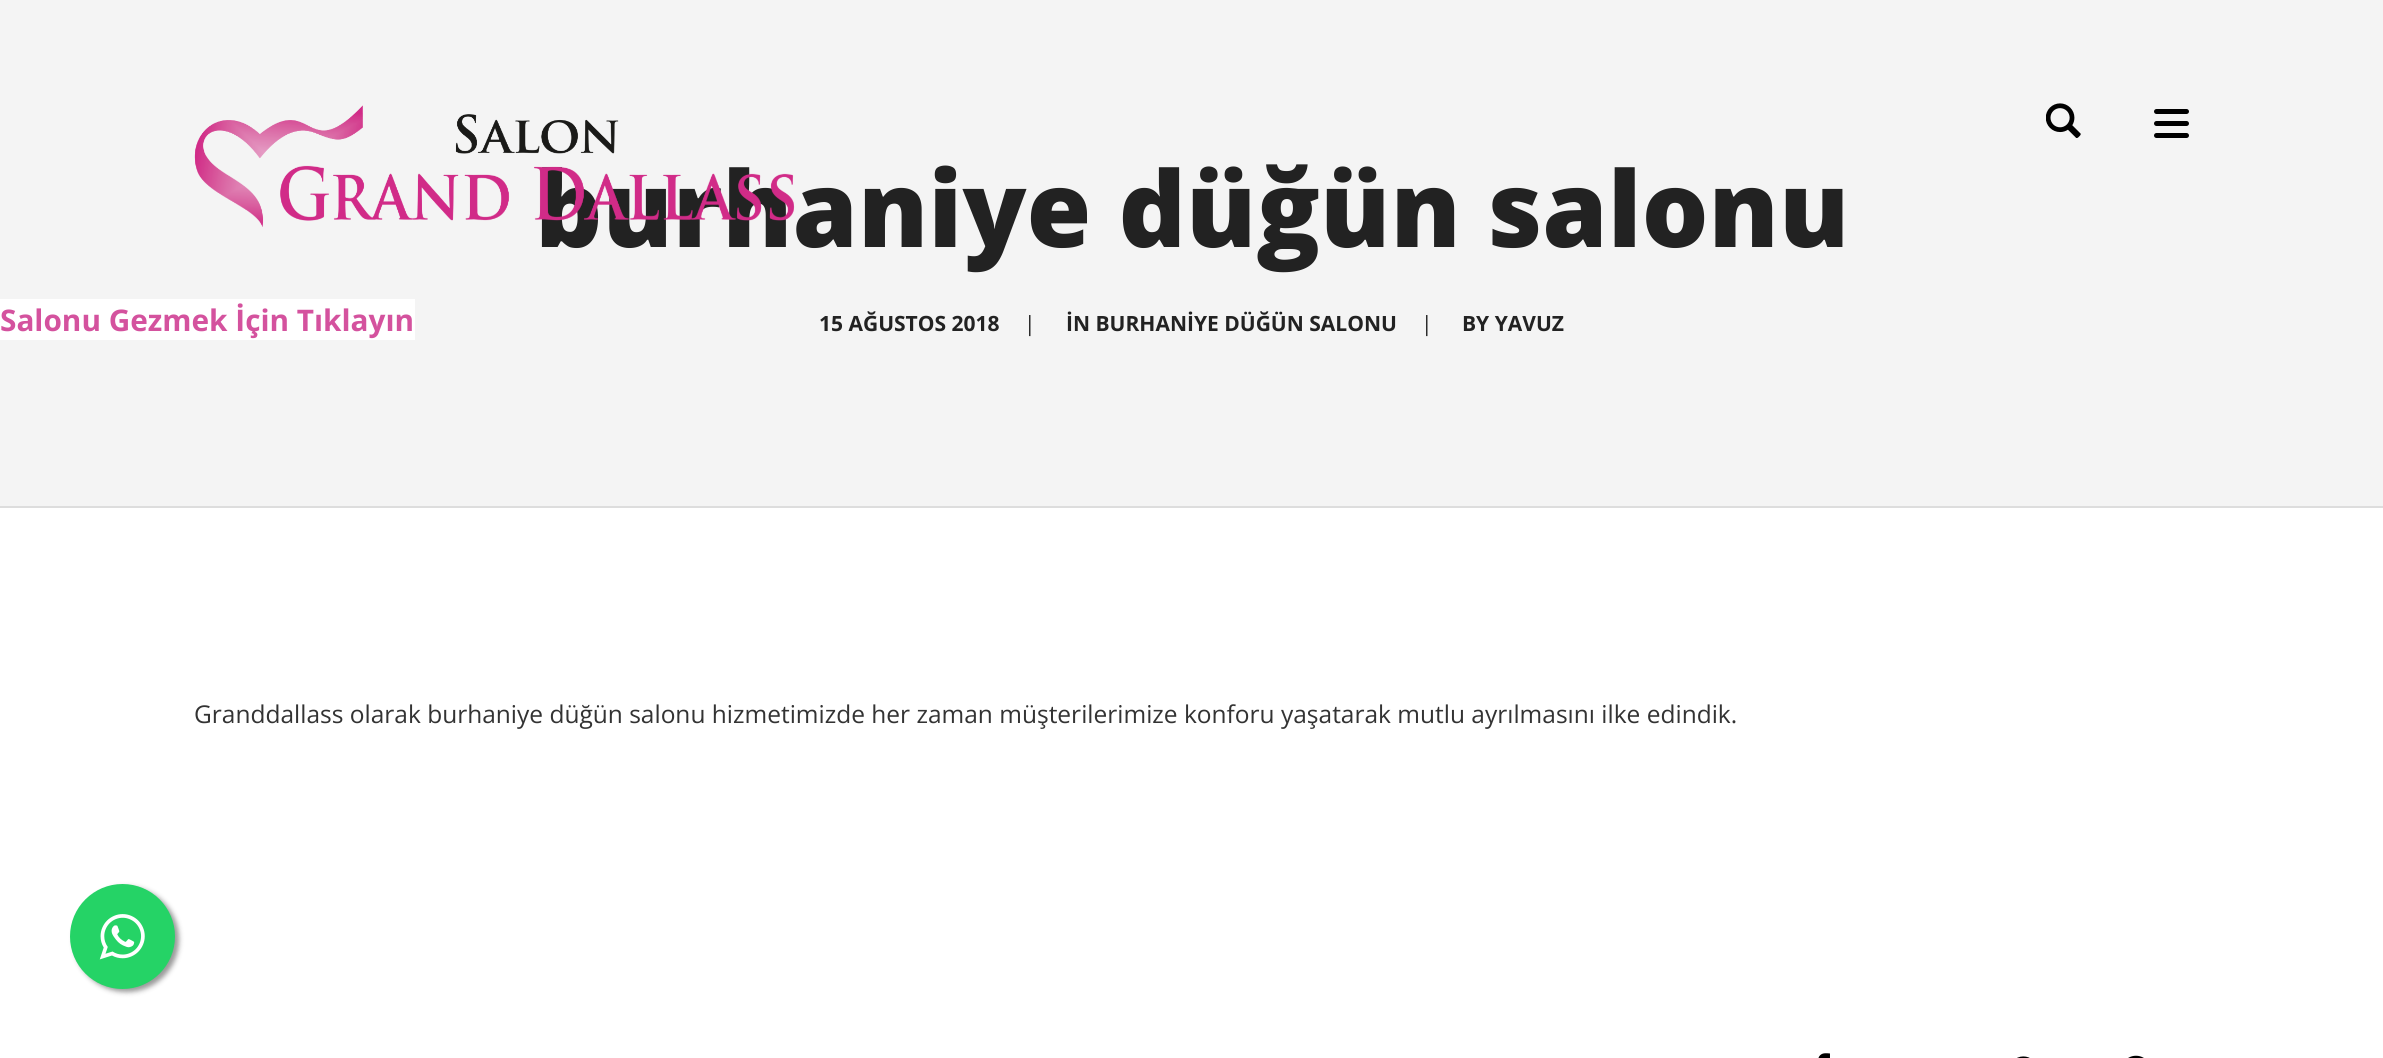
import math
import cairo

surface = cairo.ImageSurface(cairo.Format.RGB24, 2383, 1058)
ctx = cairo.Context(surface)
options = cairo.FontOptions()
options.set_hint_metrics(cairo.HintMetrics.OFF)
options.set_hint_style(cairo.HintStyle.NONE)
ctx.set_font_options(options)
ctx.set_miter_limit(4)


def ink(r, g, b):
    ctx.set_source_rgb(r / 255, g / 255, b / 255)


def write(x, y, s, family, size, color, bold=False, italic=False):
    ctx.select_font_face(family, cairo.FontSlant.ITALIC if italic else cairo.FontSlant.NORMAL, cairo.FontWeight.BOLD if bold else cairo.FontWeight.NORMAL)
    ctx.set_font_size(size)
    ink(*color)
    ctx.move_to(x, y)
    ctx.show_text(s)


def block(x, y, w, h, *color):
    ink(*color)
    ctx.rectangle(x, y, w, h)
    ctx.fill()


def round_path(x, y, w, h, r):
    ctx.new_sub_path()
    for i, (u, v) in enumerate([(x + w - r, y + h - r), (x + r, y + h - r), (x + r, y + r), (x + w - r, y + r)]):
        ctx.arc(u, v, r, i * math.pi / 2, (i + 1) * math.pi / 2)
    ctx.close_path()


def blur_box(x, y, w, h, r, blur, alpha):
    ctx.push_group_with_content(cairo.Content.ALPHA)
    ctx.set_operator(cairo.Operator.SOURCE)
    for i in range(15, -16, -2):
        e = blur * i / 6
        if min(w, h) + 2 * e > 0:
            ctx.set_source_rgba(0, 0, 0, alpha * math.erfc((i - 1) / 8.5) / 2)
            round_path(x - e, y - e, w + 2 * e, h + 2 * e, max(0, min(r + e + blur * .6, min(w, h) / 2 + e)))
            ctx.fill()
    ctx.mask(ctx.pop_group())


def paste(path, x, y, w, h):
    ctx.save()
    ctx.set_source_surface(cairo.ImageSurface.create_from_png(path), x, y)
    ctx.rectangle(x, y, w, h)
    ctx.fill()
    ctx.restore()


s1 = dict(family="Open Sans ExtraBold", size=105, color=(34, 34, 34))
s2 = dict(family="Open Sans", size=21, color=(34, 34, 34), bold=True)
s3 = dict(family="Open Sans", size=21, color=(34, 34, 34))
s4 = dict(family="Open Sans", size=24.5, color=(51, 51, 51))
s5 = dict(family="Open Sans", size=29.75, color=(212, 82, 158), bold=True)

ink(255, 255, 255)
ctx.paint()
block(0, 0, 2383, 506, 244, 244, 244)
write(535, 247, "burhaniye düğün salonu", **s1)
paste("pic1.png", 194, 105, 601, 122)
paste("pic2.png", 2046, 103, 35, 35)
ink(0, 0, 0)
round_path(2154, 109, 35, 5, 2.5)
ctx.fill()
round_path(2154, 121, 35, 5, 2.5)
ctx.fill()
round_path(2154, 133, 35, 5, 2.5)
ctx.fill()
block(0, 506, 2383, 2, 221, 221, 221)
write(819, 331, "15 AĞUSTOS 2018", **s2)
write(1024, 331, "|", **s3)
write(1066, 331, "İN BURHANİYE DÜĞÜN SALONU", **s2)
write(1421, 331, "|", **s3)
write(1462, 331, "BY YAVUZ", **s2)
write(194, 723, "Granddallass olarak burhaniye düğün salonu hizmetimizde her zaman müşterilerimize konforu yaşatarak mutlu ayrılmasını ilke edindik.", **s4)
paste("pic3.png", 1818, 1053, 12, 5)
paste("pic4.png", 2017, 1056, 13, 2)
paste("pic5.png", 2128, 1055, 16, 3)
block(0, 299, 415, 41, 255, 255, 255)
write(0, 331, "Salonu Gezmek İçin Tıklayın", **s5)
ink(153, 153, 153)
blur_box(74, 887, 105, 105, 52.5, 2.5, 1)
ink(37, 211, 102)
ctx.arc(122.5, 936.5, 52.5, 0, 2 * math.pi)
ctx.fill()
paste("pic6.png", 99, 914, 46, 46)
surface.write_to_png("screenshot.png")
